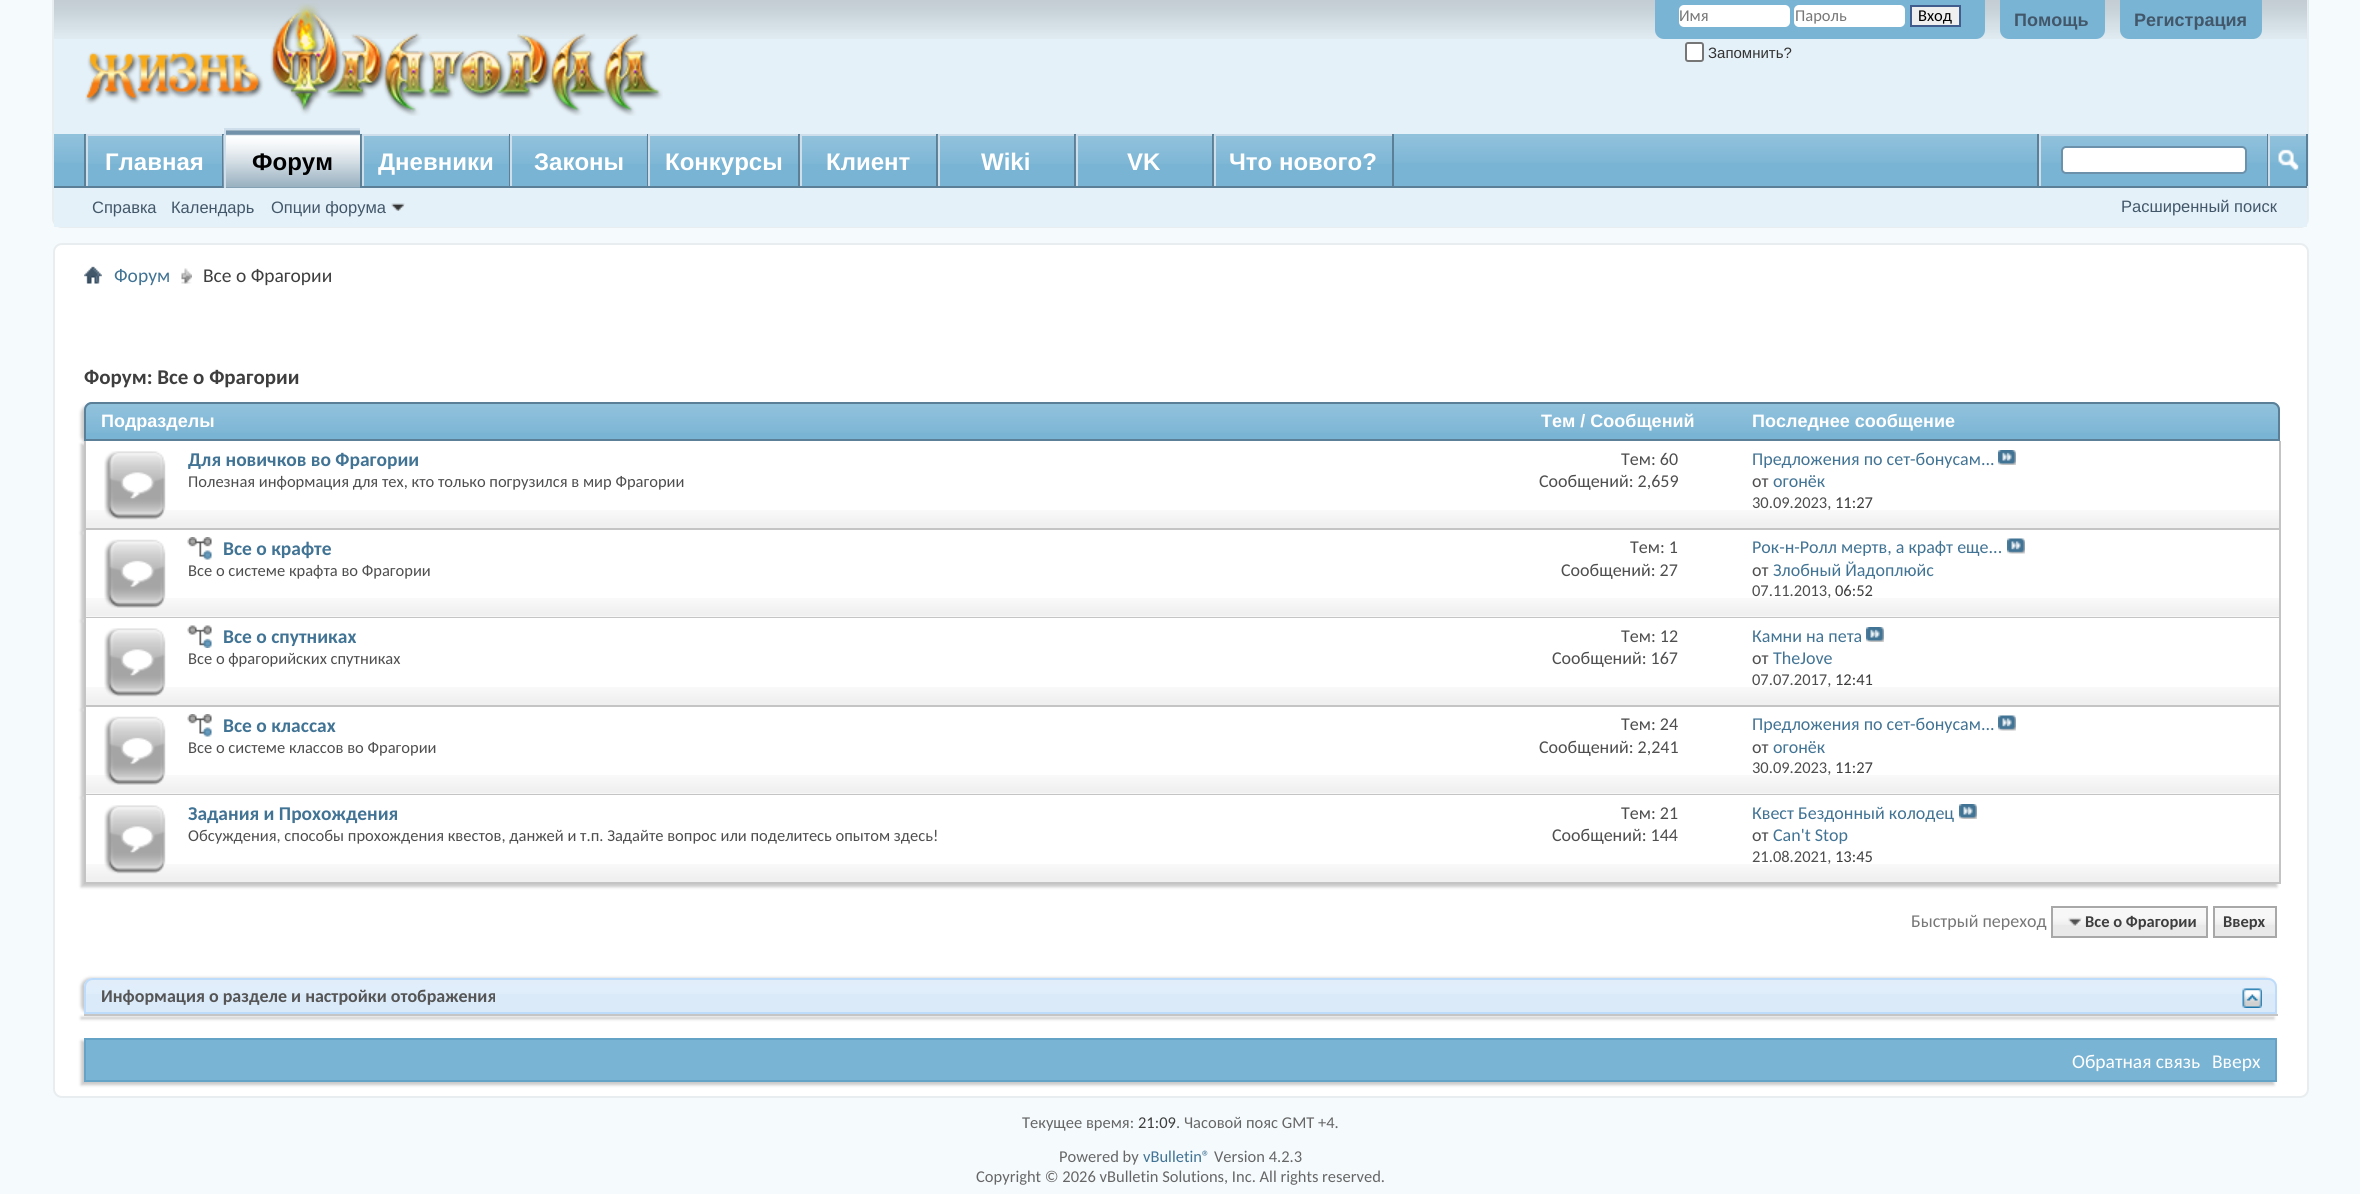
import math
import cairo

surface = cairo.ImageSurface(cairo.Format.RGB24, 2360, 1194)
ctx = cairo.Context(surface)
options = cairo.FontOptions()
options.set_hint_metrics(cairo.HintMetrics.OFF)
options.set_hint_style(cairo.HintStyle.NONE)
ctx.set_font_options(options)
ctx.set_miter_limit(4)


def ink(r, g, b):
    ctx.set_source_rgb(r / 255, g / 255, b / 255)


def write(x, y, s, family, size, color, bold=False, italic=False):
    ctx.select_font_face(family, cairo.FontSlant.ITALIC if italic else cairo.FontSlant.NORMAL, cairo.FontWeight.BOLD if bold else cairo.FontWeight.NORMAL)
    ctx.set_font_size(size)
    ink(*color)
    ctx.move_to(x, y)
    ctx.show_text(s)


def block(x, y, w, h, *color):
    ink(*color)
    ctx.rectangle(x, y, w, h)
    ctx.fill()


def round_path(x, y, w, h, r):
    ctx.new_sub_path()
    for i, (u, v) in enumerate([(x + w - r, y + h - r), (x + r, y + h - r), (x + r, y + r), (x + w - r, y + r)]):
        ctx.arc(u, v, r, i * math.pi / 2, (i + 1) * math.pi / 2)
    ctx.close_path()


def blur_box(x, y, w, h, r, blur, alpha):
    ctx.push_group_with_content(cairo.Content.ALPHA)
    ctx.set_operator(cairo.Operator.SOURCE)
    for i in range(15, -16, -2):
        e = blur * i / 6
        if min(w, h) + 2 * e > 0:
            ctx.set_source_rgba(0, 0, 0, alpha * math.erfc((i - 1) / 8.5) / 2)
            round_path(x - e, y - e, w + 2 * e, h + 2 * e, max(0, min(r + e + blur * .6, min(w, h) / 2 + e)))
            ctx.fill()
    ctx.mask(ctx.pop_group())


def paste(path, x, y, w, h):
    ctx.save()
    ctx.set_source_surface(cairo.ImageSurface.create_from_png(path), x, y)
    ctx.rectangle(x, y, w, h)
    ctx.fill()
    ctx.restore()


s1 = dict(family="Carlito", size=16.5, color=(119, 119, 119))
s2 = dict(family="Carlito", size=16.5, color=(0, 0, 0))
s3 = dict(family="Liberation Sans", size=15, color=(51, 51, 51))
s4 = dict(family="Liberation Sans", size=18, color=(66, 87, 105), bold=True)
s5 = dict(family="Liberation Sans", size=24, color=(255, 255, 255), bold=True)
s6 = dict(family="Liberation Sans", size=24, color=(0, 0, 0), bold=True)
s7 = dict(family="Liberation Sans", size=16.5, color=(66, 87, 105))
s8 = dict(family="Carlito", size=19.5, color=(65, 115, 148))
s9 = dict(family="Carlito", size=19.5, color=(62, 62, 62))
s10 = dict(family="Carlito", size=21, color=(62, 62, 62), bold=True)
s11 = dict(family="Liberation Sans", size=18, color=(255, 255, 255), bold=True)
s12 = dict(family="Carlito", size=19.5, color=(65, 115, 148), bold=True)
s13 = dict(family="Carlito", size=16.5, color=(78, 78, 78))
s14 = dict(family="Carlito", size=18, color=(78, 78, 78))
s15 = dict(family="Carlito", size=18, color=(65, 115, 148))
s16 = dict(family="Carlito", size=16.5, color=(62, 62, 62))
s17 = dict(family="Carlito", size=18, color=(119, 119, 119))
s18 = dict(family="Carlito", size=16.5, color=(62, 62, 62), bold=True)
s19 = dict(family="Carlito", size=18, color=(85, 85, 85), bold=True)
s20 = dict(family="Carlito", size=19.5, color=(255, 255, 255))
s21 = dict(family="Carlito", size=16.5, color=(102, 102, 102))
s22 = dict(family="Carlito", size=16.5, color=(65, 115, 148))

ink(245, 250, 253)
ctx.paint()
ink(229, 241, 248)
ctx.new_path()
ctx.move_to(53, 0)
ctx.line_to(2309, 0)
ctx.line_to(2309, 219)
ctx.curve_to(2309, 224, 2305, 228, 2300, 228)
ctx.line_to(62, 228)
ctx.curve_to(57, 228, 53, 224, 53, 219)
ctx.close_path()
ctx.fill()
paste("pic1.png", 54, 0, 2255, 39)
ink(232, 237, 240)
ctx.set_fill_rule(cairo.FillRule.EVEN_ODD)
ctx.new_path()
ctx.move_to(52, 0)
ctx.line_to(2308, 0)
ctx.line_to(2308, 219)
ctx.curve_to(2308, 224, 2304, 228, 2300, 228)
ctx.line_to(62, 228)
ctx.curve_to(57, 228, 52, 224, 52, 219)
ctx.close_path()
ctx.move_to(54, 0)
ctx.line_to(2307, 0)
ctx.line_to(2307, 219)
ctx.curve_to(2307, 223, 2304, 226, 2300, 226)
ctx.line_to(62, 226)
ctx.curve_to(57, 226, 54, 223, 54, 219)
ctx.close_path()
ctx.fill()
paste("pic2.png", 85, 3, 578, 113)
ink(121, 180, 212)
ctx.new_path()
ctx.move_to(1655, 0)
ctx.line_to(1985, 0)
ctx.line_to(1985, 30)
ctx.curve_to(1985, 35, 1981, 39, 1976, 39)
ctx.line_to(1664, 39)
ctx.curve_to(1659, 39, 1655, 35, 1655, 30)
ctx.close_path()
ctx.fill()
ink(255, 255, 255)
round_path(1679, 5, 111, 22, 5)
ctx.fill()
write(1679, 21, "Имя", **s1)
ink(255, 255, 255)
round_path(1794, 5, 111, 22, 5)
ctx.fill()
write(1795, 21, "Пароль", **s1)
ink(239, 239, 239)
ctx.rectangle(1911, 6, 49, 20)
ctx.fill_preserve()
ink(65, 93, 141)
ctx.stroke()
write(1918, 21, "Вход", **s2)
ink(255, 255, 255)
round_path(1686, 43, 17, 18, 2)
ctx.fill_preserve()
ink(118, 118, 118)
ctx.stroke()
write(1708, 58, "Запомнить?", **s3)
ink(121, 180, 212)
ctx.new_path()
ctx.move_to(2000, 0)
ctx.line_to(2105, 0)
ctx.line_to(2105, 30)
ctx.curve_to(2105, 35, 2101, 39, 2096, 39)
ctx.line_to(2009, 39)
ctx.curve_to(2004, 39, 2000, 35, 2000, 30)
ctx.close_path()
ctx.fill()
write(2014, 26, "Помощь", **s4)
ink(121, 180, 212)
ctx.new_path()
ctx.move_to(2120, 0)
ctx.line_to(2262, 0)
ctx.line_to(2262, 30)
ctx.curve_to(2262, 35, 2258, 39, 2253, 39)
ctx.line_to(2129, 39)
ctx.curve_to(2124, 39, 2120, 35, 2120, 30)
ctx.close_path()
ctx.fill()
write(2134, 26, "Регистрация", **s4)
block(54, 221, 2253, 6, 229, 241, 248)
block(54, 134, 2252, 52, 121, 180, 212)
paste("pic3.png", 54, 134, 2252, 29)
block(222, 134, 2, 54, 90, 127, 151)
block(84, 134, 2, 54, 90, 127, 151)
block(88, 136, 134, 27, 121, 180, 212)
paste("pic4.png", 85, 135, 137, 29)
block(86, 134, 136, 2, 206, 223, 235)
block(86, 134, 2, 54, 206, 223, 235)
write(105, 170, "Главная", **s5)
block(360, 134, 2, 52, 90, 127, 151)
block(509, 134, 1, 54, 90, 127, 151)
block(364, 136, 145, 27, 121, 180, 212)
paste("pic6.png", 361, 135, 148, 29)
block(362, 134, 147, 2, 206, 223, 235)
block(362, 134, 2, 54, 206, 223, 235)
block(647, 134, 1, 54, 90, 127, 151)
block(510, 134, 137, 2, 206, 223, 235)
block(510, 134, 2, 54, 206, 223, 235)
block(798, 134, 2, 54, 90, 127, 151)
block(648, 134, 150, 2, 206, 223, 235)
block(648, 134, 2, 54, 206, 223, 235)
block(936, 134, 2, 54, 90, 127, 151)
block(802, 136, 134, 27, 121, 180, 212)
paste("pic4.png", 799, 135, 137, 29)
block(800, 134, 136, 2, 206, 223, 235)
block(800, 134, 2, 54, 206, 223, 235)
block(1074, 134, 2, 54, 90, 127, 151)
block(940, 136, 134, 27, 121, 180, 212)
paste("pic4.png", 937, 135, 137, 29)
block(938, 134, 136, 2, 206, 223, 235)
block(938, 134, 2, 54, 206, 223, 235)
block(1212, 134, 2, 54, 90, 127, 151)
block(1078, 136, 134, 27, 121, 180, 212)
paste("pic4.png", 1075, 135, 137, 29)
block(1076, 134, 136, 2, 206, 223, 235)
block(1076, 134, 2, 54, 206, 223, 235)
block(1392, 134, 2, 54, 90, 127, 151)
block(1216, 136, 176, 27, 121, 180, 212)
paste("pic9.png", 1213, 135, 179, 29)
block(1214, 134, 178, 2, 206, 223, 235)
block(1214, 134, 2, 54, 206, 223, 235)
block(54, 186, 2253, 2, 90, 127, 151)
block(226, 130, 134, 58, 113, 146, 168)
paste("pic5.png", 223, 129, 137, 59)
block(224, 128, 136, 2, 206, 223, 235)
block(224, 128, 2, 60, 206, 223, 235)
write(252, 170, "Форум", **s6)
write(378, 170, "Дневники", **s5)
block(512, 136, 135, 27, 121, 180, 212)
paste("pic7.png", 512, 136, 135, 28)
write(534, 170, "Законы", **s5)
block(650, 136, 148, 27, 121, 180, 212)
paste("pic8.png", 650, 136, 148, 28)
write(665, 170, "Конкурсы", **s5)
write(826, 170, "Клиент", **s5)
write(981, 170, "Wiki", **s5)
write(1127, 170, "VK", **s5)
write(1229, 170, "Что нового?", **s5)
write(92, 213, "Справка", **s7)
write(171, 213, "Календарь", **s7)
write(271, 213, "Опции форума", **s7)
paste("pic10.png", 391, 203, 14, 8)
block(2037, 134, 2, 52, 90, 127, 151)
block(2039, 134, 228, 2, 206, 223, 235)
block(2039, 134, 2, 52, 206, 223, 235)
ink(255, 255, 255)
round_path(2062, 147, 184, 26, 4)
ctx.fill_preserve()
ink(107, 145, 171)
ctx.stroke()
block(2306, 134, 2, 52, 90, 127, 151)
block(2267, 134, 1, 52, 90, 127, 151)
block(2268, 134, 38, 2, 206, 223, 235)
block(2268, 134, 2, 52, 206, 223, 235)
paste("pic11.png", 2278, 149, 21, 22)
write(2121, 212, "Расширенный поиск", **s7)
ink(255, 255, 255)
round_path(54, 244, 2254, 853, 8)
ctx.fill_preserve()
ink(232, 237, 240)
ctx.stroke()
paste("pic12.png", 84, 266, 18, 18)
paste("pic13.png", 181, 268, 11, 16)
write(114, 282, "Форум", **s8)
write(203, 282, "Все о Фрагории", **s9)
write(84, 384, "Форум: Все о Фрагории", **s10)
ink(200, 200, 200)
blur_box(81, 405, 2196, 39, 8, 1.5, 1)
ink(121, 180, 212)
ctx.new_path()
ctx.move_to(92, 402)
ctx.line_to(2272, 402)
ctx.curve_to(2276.5, 402, 2280, 405.5, 2280, 410)
ctx.line_to(2280, 441)
ctx.line_to(84, 441)
ctx.line_to(84, 410)
ctx.curve_to(84, 405.5, 87.5, 402, 92, 402)
ctx.close_path()
ctx.fill()
paste("pic14.png", 84, 403, 2196, 30)
ctx.new_path()
ctx.move_to(92, 403)
ctx.line_to(2272, 403)
ctx.curve_to(2276, 403, 2279, 406, 2279, 410)
ctx.line_to(2279, 440)
ctx.line_to(85, 440)
ctx.line_to(85, 410)
ctx.curve_to(85, 406, 88, 403, 92, 403)
ctx.close_path()
ink(90, 127, 151)
ctx.stroke()
write(101, 427, "Подразделы", **s11)
write(1541, 427, "Тем / Сообщений", **s11)
write(1752, 427, "Последнее сообщение", **s11)
ink(200, 200, 200)
blur_box(81, 444, 2196, 89, 0, 1.5, 1)
block(86, 441, 2193, 87, 255, 255, 255)
paste("pic15.png", 86, 510, 2193, 18)
block(2279, 441, 2, 89, 196, 196, 196)
block(84, 528, 2196, 2, 196, 196, 196)
block(84, 441, 2, 89, 196, 196, 196)
paste("pic16.png", 104, 451, 62, 69)
write(188, 466, "Для новичков во Фрагории", **s12)
write(188, 487, "Полезная информация для тех, кто только погрузился в мир Фрагории", **s13)
write(1621, 465, "Тем: 60", **s14)
write(1539, 487, "Сообщений: 2,659", **s14)
write(1752, 465, "Предложения по сет-бонусам...", **s15)
paste("pic17.png", 1998, 450, 18, 15)
write(1752, 487, "от", **s14)
write(1773, 487, "огонёк", **s15)
write(1752, 508, "30.09.2023,", **s13)
write(1835, 508, "11:27", **s16)
ink(200, 200, 200)
blur_box(81, 533, 2196, 88, 0, 1.5, 1)
block(86, 530, 2193, 87, 255, 255, 255)
paste("pic18.png", 86, 598, 2193, 19)
block(2279, 530, 2, 88, 196, 196, 196)
block(84, 617, 2196, 1, 196, 196, 196)
block(84, 530, 2, 88, 196, 196, 196)
paste("pic19.png", 104, 539, 62, 69)
paste("pic20.png", 187, 537, 25, 23)
write(223, 555, "Все о крафте", **s12)
write(188, 576, "Все о системе крафта во Фрагории", **s13)
write(1630, 553, "Тем: 1", **s14)
write(1561, 576, "Сообщений: 27", **s14)
write(1752, 553, "Рок-н-Ролл мертв, а крафт еще...", **s15)
paste("pic21.png", 2007, 538, 18, 16)
write(1752, 576, "от", **s14)
write(1773, 576, "Злобный Йадоплюйс", **s15)
write(1752, 596, "07.11.2013,", **s13)
write(1835, 596, "06:52", **s16)
ink(200, 200, 200)
blur_box(81, 621, 2196, 89, 0, 1.5, 1)
block(86, 618, 2193, 87, 255, 255, 255)
paste("pic22.png", 86, 687, 2193, 18)
block(2279, 618, 2, 89, 196, 196, 196)
block(84, 705, 2196, 2, 196, 196, 196)
block(84, 618, 2, 89, 196, 196, 196)
paste("pic23.png", 104, 628, 62, 69)
paste("pic24.png", 187, 625, 25, 23)
write(223, 643, "Все о спутниках", **s12)
write(188, 664, "Все о фрагорийских спутниках", **s13)
write(1621, 642, "Тем: 12", **s14)
write(1552, 664, "Сообщений: 167", **s14)
write(1752, 642, "Камни на пета", **s15)
paste("pic17.png", 1866, 627, 18, 15)
write(1752, 664, "от", **s14)
write(1773, 664, "TheJove", **s15)
write(1752, 685, "07.07.2017,", **s13)
write(1835, 685, "12:41", **s16)
ink(200, 200, 200)
blur_box(81, 710, 2196, 88, 0, 1.5, 1)
block(86, 707, 2193, 87, 255, 255, 255)
paste("pic18.png", 86, 775, 2193, 19)
block(2279, 707, 2, 88, 196, 196, 196)
block(84, 794, 2196, 1, 196, 196, 196)
block(84, 707, 2, 88, 196, 196, 196)
paste("pic19.png", 104, 716, 62, 69)
paste("pic20.png", 187, 714, 25, 23)
write(223, 732, "Все о классах", **s12)
write(188, 753, "Все о системе классов во Фрагории", **s13)
write(1621, 730, "Тем: 24", **s14)
write(1539, 753, "Сообщений: 2,241", **s14)
write(1752, 730, "Предложения по сет-бонусам...", **s15)
paste("pic21.png", 1998, 715, 18, 16)
write(1752, 753, "от", **s14)
write(1773, 753, "огонёк", **s15)
write(1752, 773, "30.09.2023,", **s13)
write(1835, 773, "11:27", **s16)
ink(200, 200, 200)
blur_box(81, 798, 2196, 89, 0, 1.5, 1)
block(86, 795, 2193, 87, 255, 255, 255)
paste("pic22.png", 86, 864, 2193, 18)
block(2279, 795, 2, 89, 196, 196, 196)
block(84, 882, 2196, 2, 196, 196, 196)
block(84, 795, 2, 89, 196, 196, 196)
paste("pic23.png", 104, 805, 62, 69)
write(188, 820, "Задания и Прохождения", **s12)
write(188, 841, "Обсуждения, способы прохождения квестов, данжей и т.п. Задайте вопрос или поделитесь опытом здесь!", **s13)
write(1621, 819, "Тем: 21", **s14)
write(1552, 841, "Сообщений: 144", **s14)
write(1752, 819, "Квест Бездонный колодец", **s15)
paste("pic17.png", 1959, 804, 18, 15)
write(1752, 841, "от", **s14)
write(1773, 841, "Can't Stop", **s15)
write(1752, 862, "21.08.2021,", **s13)
write(1835, 862, "13:45", **s16)
write(1911, 927, "Быстрый переход", **s17)
block(2053, 908, 153, 28, 233, 233, 233)
paste("pic25.png", 2053, 908, 153, 17)
block(2215, 908, 60, 28, 233, 233, 233)
paste("pic26.png", 2215, 908, 60, 17)
ctx.rectangle(2052, 907, 155, 30)
ink(168, 168, 168)
ctx.stroke()
paste("pic27.png", 2068, 917, 14, 10)
write(2085, 927, "Все о Фрагории", **s18)
ctx.rectangle(2214, 907, 62, 30)
ink(168, 168, 168)
ctx.stroke()
write(2223, 927, "Вверх", **s18)
ink(200, 200, 200)
blur_box(81, 1017, 2193, 2, 0, 1.5, 1)
block(84, 1014, 2194, 2, 196, 196, 196)
ink(200, 200, 200)
blur_box(81, 978, 2193, 36, 9, 1.5, 1)
ink(219, 234, 249)
ctx.new_path()
ctx.move_to(93, 978)
ctx.line_to(2268, 978)
ctx.curve_to(2273, 978, 2277, 982, 2277, 987)
ctx.line_to(2277, 1014)
ctx.line_to(84, 1014)
ctx.line_to(84, 987)
ctx.curve_to(84, 982, 88, 978, 93, 978)
ctx.close_path()
ctx.fill()
paste("pic28.png", 84, 980, 2193, 14)
ctx.new_path()
ctx.move_to(93, 979)
ctx.line_to(2268, 979)
ctx.curve_to(2272.5, 979, 2276, 982.5, 2276, 987)
ctx.line_to(2276, 1013)
ctx.line_to(85, 1013)
ctx.line_to(85, 987)
ctx.curve_to(85, 982.5, 88.5, 979, 93, 979)
ctx.close_path()
ink(189, 220, 252)
ctx.stroke()
write(101, 1002, "Информация о разделе и настройки отображения", **s19)
paste("pic29.png", 2242, 988, 20, 20)
ink(200, 200, 200)
blur_box(81, 1041, 2193, 44, 0, 1.5, 1)
ink(121, 180, 212)
ctx.rectangle(85, 1039, 2191, 42)
ctx.fill_preserve()
ink(100, 163, 197)
ctx.stroke()
write(2072, 1068, "Обратная связь", **s20)
write(2212, 1068, "Вверх", **s20)
write(1022, 1128, "Текущее время:", **s21)
write(1138, 1128, "21:09", **s16)
write(1176, 1128, ". Часовой пояс GMT +4.", **s21)
write(1059, 1162, "Powered by", **s21)
write(1143, 1162, "vBulletin®", **s22)
write(1214, 1162, "Version 4.2.3", **s21)
write(976, 1182, "Copyright © 2026 vBulletin Solutions, Inc. All rights reserved.", **s21)
surface.write_to_png("screenshot.png")
